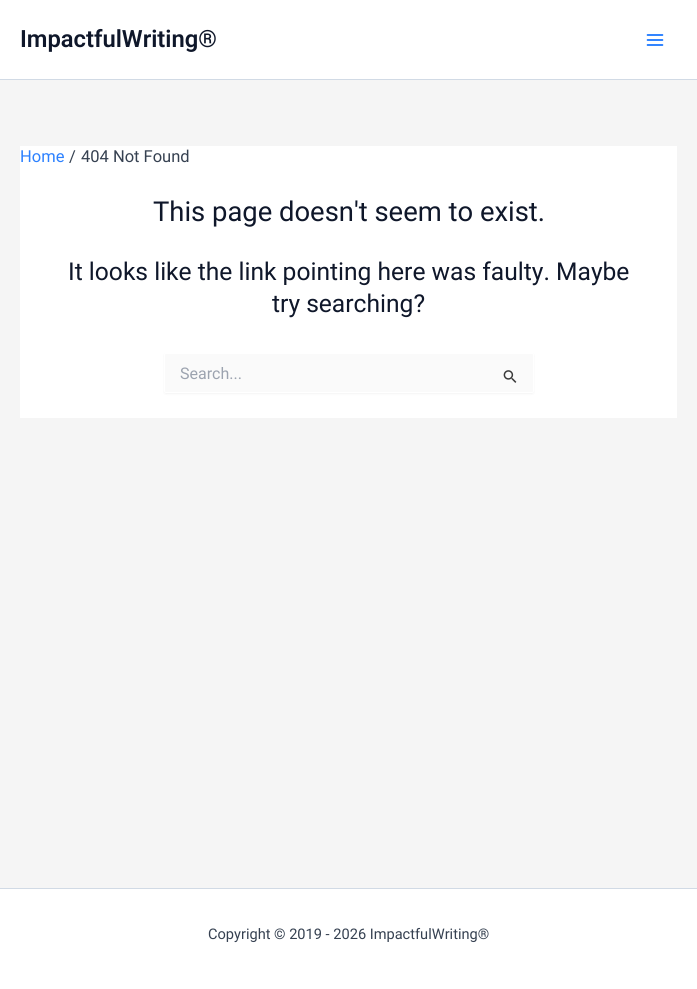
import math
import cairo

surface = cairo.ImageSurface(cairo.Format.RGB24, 697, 989)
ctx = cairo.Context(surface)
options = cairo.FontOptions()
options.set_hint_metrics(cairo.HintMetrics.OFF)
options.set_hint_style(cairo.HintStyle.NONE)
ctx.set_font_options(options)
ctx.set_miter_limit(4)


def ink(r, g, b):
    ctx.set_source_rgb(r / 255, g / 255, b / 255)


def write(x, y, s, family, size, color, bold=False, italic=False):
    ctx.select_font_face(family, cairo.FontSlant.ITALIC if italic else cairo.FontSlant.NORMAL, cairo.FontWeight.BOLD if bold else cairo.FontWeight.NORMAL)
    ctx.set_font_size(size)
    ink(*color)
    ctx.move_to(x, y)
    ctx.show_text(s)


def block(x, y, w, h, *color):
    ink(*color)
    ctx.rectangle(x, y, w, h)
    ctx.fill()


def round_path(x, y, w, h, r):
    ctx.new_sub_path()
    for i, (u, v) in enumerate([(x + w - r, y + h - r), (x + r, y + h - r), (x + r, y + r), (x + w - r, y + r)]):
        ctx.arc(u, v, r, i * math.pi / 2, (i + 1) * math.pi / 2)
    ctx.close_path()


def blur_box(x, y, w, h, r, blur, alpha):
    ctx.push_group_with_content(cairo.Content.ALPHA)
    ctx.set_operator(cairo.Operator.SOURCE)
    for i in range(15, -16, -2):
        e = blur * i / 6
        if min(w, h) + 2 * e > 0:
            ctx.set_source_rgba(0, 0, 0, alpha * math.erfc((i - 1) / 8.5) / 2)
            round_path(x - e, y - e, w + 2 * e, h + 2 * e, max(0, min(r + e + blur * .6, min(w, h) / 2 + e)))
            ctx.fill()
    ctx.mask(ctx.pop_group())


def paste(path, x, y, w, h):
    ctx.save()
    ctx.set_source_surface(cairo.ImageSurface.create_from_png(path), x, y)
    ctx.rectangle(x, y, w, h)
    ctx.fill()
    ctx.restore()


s1 = dict(family="Roboto SemiBold", size=23.75, color=(15, 23, 42))
s2 = dict(family="Roboto", size=16.5, color=(44, 129, 255))
s3 = dict(family="Roboto", size=16.5, color=(54, 65, 81))
s4 = dict(family="Roboto", size=27.4, color=(15, 23, 42))
s5 = dict(family="Roboto", size=24.6, color=(15, 23, 42))
s6 = dict(family="Roboto", size=16, color=(156, 163, 175))
s7 = dict(family="Roboto", size=14.6, color=(54, 65, 81))

ink(245, 245, 245)
ctx.paint()
block(0, 0, 697, 79, 255, 255, 255)
block(0, 79, 697, 1, 209, 218, 229)
write(20, 47, "ImpactfulWriting®", **s1)
paste("pic1.png", 646, 34, 18, 12)
block(20, 146, 657, 272, 255, 255, 255)
write(20, 162, "Home", **s2)
write(69, 162, "/", **s3)
write(81, 162, "404 Not Found", **s3)
write(153, 221, "This page doesn't seem to exist.", **s4)
write(68, 280, "It looks like the link pointing here was faulty. Maybe", **s5)
write(272, 312, "try searching?", **s5)
ink(0, 0, 0)
blur_box(164, 354, 370, 40, 2, 1, 0.05)
ink(250, 250, 250)
round_path(164.5, 353.5, 369, 39, 1.5)
ctx.fill_preserve()
ink(255, 255, 255)
ctx.set_line_width(1)
ctx.stroke()
write(180, 379, "Search...", **s6)
paste("pic2.png", 503, 370, 14, 13)
block(0, 889, 697, 100, 255, 255, 255)
block(0, 888, 697, 1, 209, 218, 229)
write(208, 939, "Copyright © 2019 - 2026 ImpactfulWriting®", **s7)
surface.write_to_png("screenshot.png")
